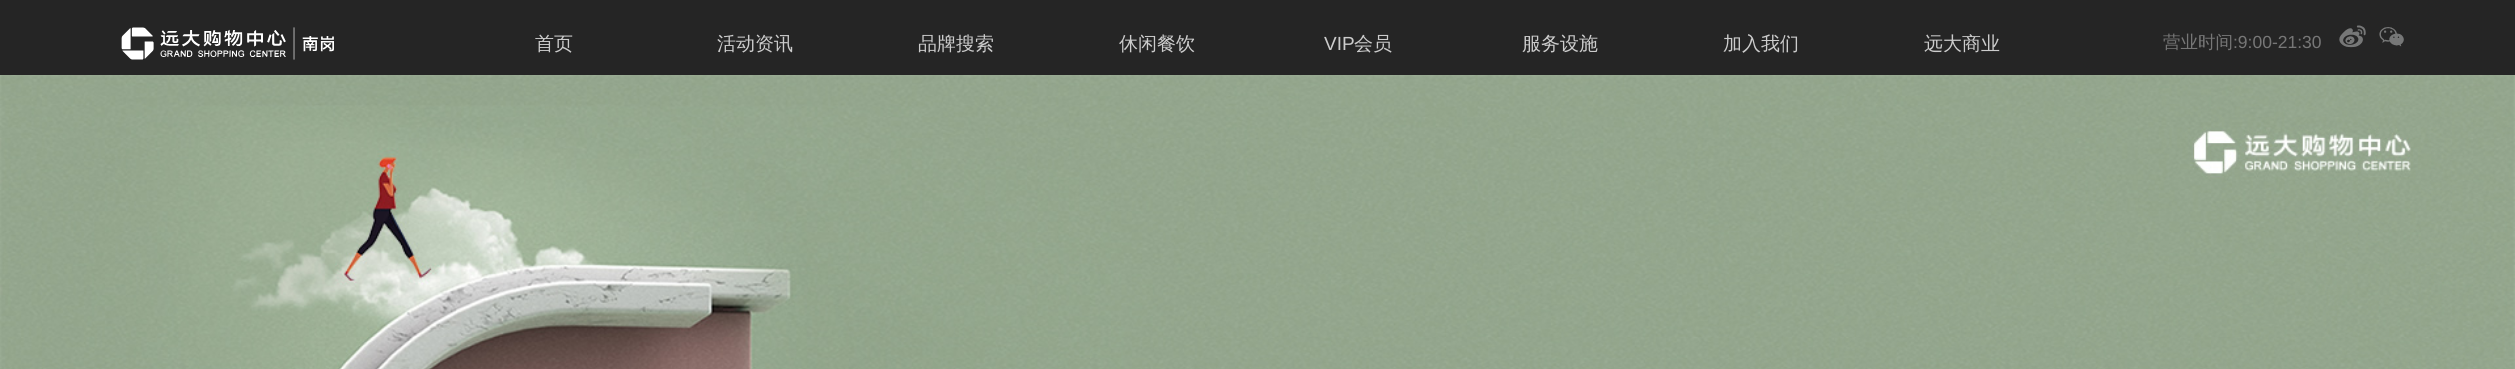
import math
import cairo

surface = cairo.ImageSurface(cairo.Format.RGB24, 2515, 369)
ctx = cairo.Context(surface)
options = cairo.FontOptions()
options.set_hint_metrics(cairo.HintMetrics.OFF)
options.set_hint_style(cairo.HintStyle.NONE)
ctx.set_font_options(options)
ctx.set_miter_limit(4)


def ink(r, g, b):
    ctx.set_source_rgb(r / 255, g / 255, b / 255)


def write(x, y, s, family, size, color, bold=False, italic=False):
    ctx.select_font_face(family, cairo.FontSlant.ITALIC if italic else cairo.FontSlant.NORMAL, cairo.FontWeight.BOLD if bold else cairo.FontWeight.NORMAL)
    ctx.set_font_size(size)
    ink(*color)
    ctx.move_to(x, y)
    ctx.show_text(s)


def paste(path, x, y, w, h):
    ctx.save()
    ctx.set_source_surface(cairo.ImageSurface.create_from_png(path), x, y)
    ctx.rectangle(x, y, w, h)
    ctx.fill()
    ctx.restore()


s1 = dict(family="WenQuanYi Zen Hei Medium", size=19, color=(204, 204, 204))
s2 = dict(family="Liberation Sans", size=19, color=(204, 204, 204))
s3 = dict(family="WenQuanYi Zen Hei Medium", size=17.5, color=(119, 119, 119))
s4 = dict(family="Liberation Sans", size=17.5, color=(119, 119, 119))

ink(37, 37, 37)
ctx.paint()
paste("pic1.png", 121, 27, 213, 33)
write(535, 50, "首页", **s1)
write(717, 50, "活动资讯", **s1)
write(918, 50, "品牌搜索", **s1)
write(1119, 50, "休闲餐饮", **s1)
write(1324, 50, "VIP", **s2)
write(1354, 50, "会员", **s1)
write(1522, 50, "服务设施", **s1)
write(1723, 50, "加入我们", **s1)
write(1924, 50, "远大商业", **s1)
write(2163, 48, "营业时间", **s3)
write(2233, 48, ":9:00-21:30", **s4)
paste("pic2.png", 2339, 25, 27, 23)
paste("pic3.png", 2379, 27, 25, 20)
paste("pic4.png", 0, 75, 2515, 294)
surface.write_to_png("screenshot.png")
